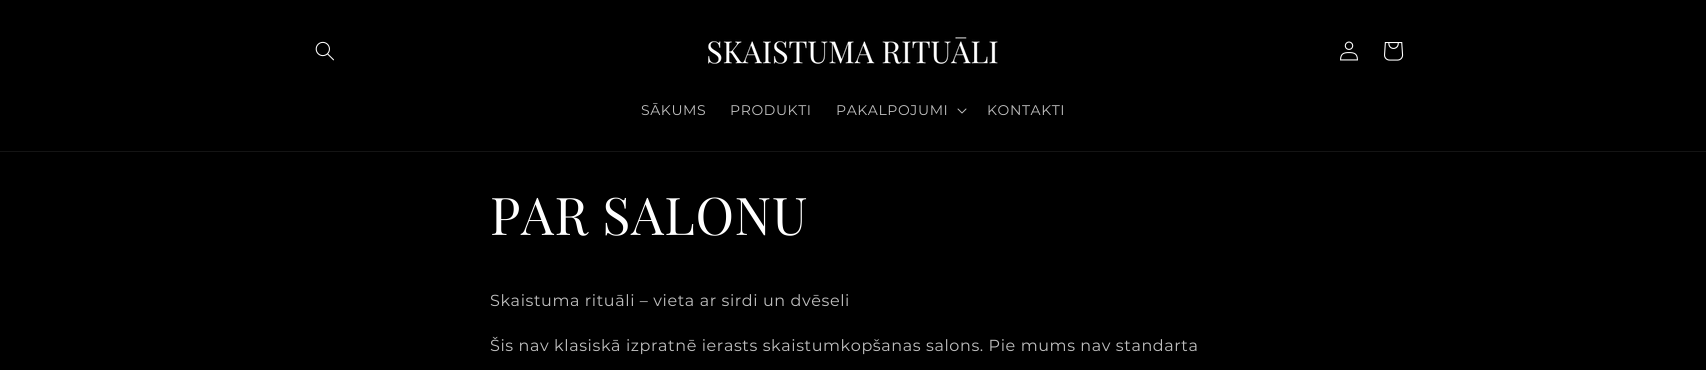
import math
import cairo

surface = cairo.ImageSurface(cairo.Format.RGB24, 1706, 370)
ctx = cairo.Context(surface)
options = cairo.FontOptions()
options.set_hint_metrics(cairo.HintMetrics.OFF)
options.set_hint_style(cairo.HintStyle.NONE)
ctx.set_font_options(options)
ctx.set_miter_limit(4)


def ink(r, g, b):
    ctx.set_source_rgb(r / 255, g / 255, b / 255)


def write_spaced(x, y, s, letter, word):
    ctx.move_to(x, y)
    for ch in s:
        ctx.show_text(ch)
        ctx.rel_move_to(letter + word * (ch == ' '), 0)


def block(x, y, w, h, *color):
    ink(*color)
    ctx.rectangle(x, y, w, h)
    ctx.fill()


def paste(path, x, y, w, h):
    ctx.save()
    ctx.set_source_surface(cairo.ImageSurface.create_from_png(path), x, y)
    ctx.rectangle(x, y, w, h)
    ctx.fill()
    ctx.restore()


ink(0, 0, 0)
ctx.paint()
block(0, 151, 1706, 1, 20, 20, 20)
paste("pic1.png", 315, 41, 19, 20)
paste("pic2.png", 708, 37, 290, 27)
paste("pic3.png", 1340, 41, 18, 20)
paste("pic4.png", 1384, 42, 20, 19)
ctx.select_font_face("Montserrat")
ctx.set_font_size(14)
ink(191, 191, 191)
write_spaced(641, 115, "SĀKUMS", 0.6, 0)
write_spaced(730, 115, "PRODUKTI", 0.6, 0)
write_spaced(836, 115, "PAKALPOJUMI", 0.6, 0)
paste("pic5.png", 957, 108, 10, 6)
write_spaced(987, 115, "KONTAKTI", 0.6, 0)
ctx.select_font_face("Playfair Display")
ctx.set_font_size(52)
ink(255, 255, 255)
write_spaced(490, 235, "PAR SALONU", 0.6, 0)
ctx.select_font_face("Montserrat")
ctx.set_font_size(16)
ink(191, 191, 191)
write_spaced(490, 306, "Skaistuma rituāli – vieta ar sirdi un dvēseli", 0.6, 0)
write_spaced(490, 351, "Šis nav klasiskā izpratnē ierasts skaistumkopšanas salons. Pie mums nav standarta", 0.6, 0)
surface.write_to_png("screenshot.png")
